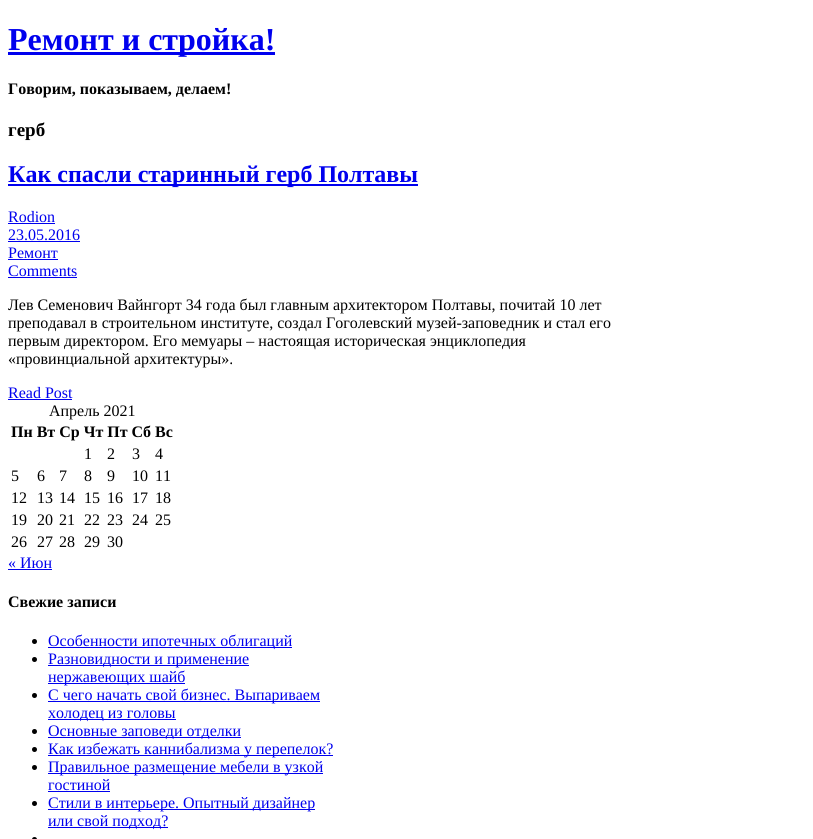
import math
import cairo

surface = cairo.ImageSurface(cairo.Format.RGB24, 813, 839)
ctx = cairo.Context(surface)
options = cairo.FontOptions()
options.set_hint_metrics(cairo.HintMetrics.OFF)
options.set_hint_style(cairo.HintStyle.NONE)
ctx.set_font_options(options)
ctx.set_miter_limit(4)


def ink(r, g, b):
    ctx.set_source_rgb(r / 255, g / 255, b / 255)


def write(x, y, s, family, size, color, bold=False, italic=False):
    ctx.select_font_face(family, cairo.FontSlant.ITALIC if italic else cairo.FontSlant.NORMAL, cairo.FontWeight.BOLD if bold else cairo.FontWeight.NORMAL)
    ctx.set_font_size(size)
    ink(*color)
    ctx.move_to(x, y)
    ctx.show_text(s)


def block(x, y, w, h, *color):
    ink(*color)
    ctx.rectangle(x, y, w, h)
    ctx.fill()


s1 = dict(family="Liberation Serif", size=32, color=(0, 0, 238), bold=True)
s2 = dict(family="Liberation Serif", size=16, color=(0, 0, 0), bold=True)
s3 = dict(family="Liberation Serif", size=19, color=(0, 0, 0), bold=True)
s4 = dict(family="Liberation Serif", size=24, color=(0, 0, 238), bold=True)
s5 = dict(family="Liberation Serif", size=16, color=(0, 0, 238))
s6 = dict(family="Liberation Serif", size=16, color=(0, 0, 0))

ink(255, 255, 255)
ctx.paint()
block(8, 52, 267, 3, 0, 0, 238)
write(8, 50, "Ремонт и стройка!", **s1)
write(8, 94, "Говорим, показываем, делаем!", **s2)
write(8, 136, "герб", **s3)
block(8, 184, 410, 2, 0, 0, 238)
write(8, 182, "Как спасли старинный герб Полтавы", **s4)
write(8, 222, "Rodion", **s5)
block(8, 223, 47, 1, 0, 0, 238)
write(8, 240, "23.05.2016", **s5)
block(8, 241, 72, 1, 0, 0, 238)
write(8, 258, "Ремонт", **s5)
block(8, 259, 50, 1, 0, 0, 238)
write(8, 276, "Comments", **s5)
block(8, 277, 69, 1, 0, 0, 238)
write(8, 310, "Лев Семенович Вайнгорт 34 года был главным архитектором Полтавы, почитай 10 лет", **s6)
write(8, 328, "преподавал в строительном институте, создал Гоголевский музей-заповедник и стал его", **s6)
write(8, 346, "первым директором. Его мемуары – настоящая историческая энциклопедия", **s6)
write(8, 364, "«провинциальной архитектуры».", **s6)
write(8, 398, "Read Post", **s5)
block(8, 399, 64, 1, 0, 0, 238)
write(49, 416, "Апрель 2021", **s6)
write(11, 437, "Пн Вт Ср Чт Пт Сб Вс", **s2)
write(84, 459, "1", **s6)
write(107, 459, "2", **s6)
write(132, 459, "3", **s6)
write(155, 459, "4", **s6)
write(11, 481, "5", **s6)
write(37, 481, "6", **s6)
write(59, 481, "7", **s6)
write(84, 481, "8", **s6)
write(107, 481, "9", **s6)
write(132, 481, "10", **s6)
write(155, 481, "11", **s6)
write(11, 503, "12", **s6)
write(37, 503, "13", **s6)
write(59, 503, "14", **s6)
write(84, 503, "15", **s6)
write(107, 503, "16", **s6)
write(132, 503, "17", **s6)
write(155, 503, "18", **s6)
write(11, 525, "19", **s6)
write(37, 525, "20", **s6)
write(59, 525, "21", **s6)
write(84, 525, "22", **s6)
write(107, 525, "23", **s6)
write(132, 525, "24", **s6)
write(155, 525, "25", **s6)
write(11, 547, "26", **s6)
write(37, 547, "27", **s6)
write(59, 547, "28", **s6)
write(84, 547, "29", **s6)
write(107, 547, "30", **s6)
write(8, 568, "« Июн", **s5)
block(8, 569, 44, 1, 0, 0, 238)
write(8, 607, "Свежие записи", **s2)
ctx.new_path()
ctx.arc(34.5, 641.5, 2.5, 0, 2 * math.pi)
ctx.fill()
block(48, 647, 244, 1, 0, 0, 238)
write(48, 646, "Особенности ипотечных облигаций", **s5)
ink(0, 0, 0)
ctx.new_path()
ctx.arc(34.5, 659.5, 2.5, 0, 2 * math.pi)
ctx.fill()
block(48, 665, 201, 1, 0, 0, 238)
write(48, 664, "Разновидности и применение", **s5)
block(48, 683, 137, 1, 0, 0, 238)
write(48, 682, "нержавеющих шайб", **s5)
ink(0, 0, 0)
ctx.new_path()
ctx.arc(34.5, 695.5, 2.5, 0, 2 * math.pi)
ctx.fill()
block(48, 701, 272, 1, 0, 0, 238)
write(48, 700, "С чего начать свой бизнес. Выпариваем", **s5)
block(48, 719, 128, 1, 0, 0, 238)
write(48, 718, "холодец из головы", **s5)
ink(0, 0, 0)
ctx.new_path()
ctx.arc(34.5, 731.5, 2.5, 0, 2 * math.pi)
ctx.fill()
block(48, 737, 193, 1, 0, 0, 238)
write(48, 736, "Основные заповеди отделки", **s5)
ink(0, 0, 0)
ctx.new_path()
ctx.arc(34.5, 749.5, 2.5, 0, 2 * math.pi)
ctx.fill()
block(48, 755, 285, 1, 0, 0, 238)
write(48, 754, "Как избежать каннибализма у перепелок?", **s5)
ink(0, 0, 0)
ctx.new_path()
ctx.arc(34.5, 767.5, 2.5, 0, 2 * math.pi)
ctx.fill()
block(48, 773, 275, 1, 0, 0, 238)
write(48, 772, "Правильное размещение мебели в узкой", **s5)
write(48, 790, "гостиной", **s5)
block(48, 791, 62, 1, 0, 0, 238)
ink(0, 0, 0)
ctx.new_path()
ctx.arc(34.5, 803.5, 2.5, 0, 2 * math.pi)
ctx.fill()
block(48, 809, 267, 1, 0, 0, 238)
write(48, 808, "Стили в интерьере. Опытный дизайнер", **s5)
block(48, 827, 120, 1, 0, 0, 238)
write(48, 826, "или свой подход?", **s5)
ink(0, 0, 0)
ctx.new_path()
ctx.arc(34.5, 839.5, 2.5, 0, 2 * math.pi)
ctx.fill()
surface.write_to_png("screenshot.png")
